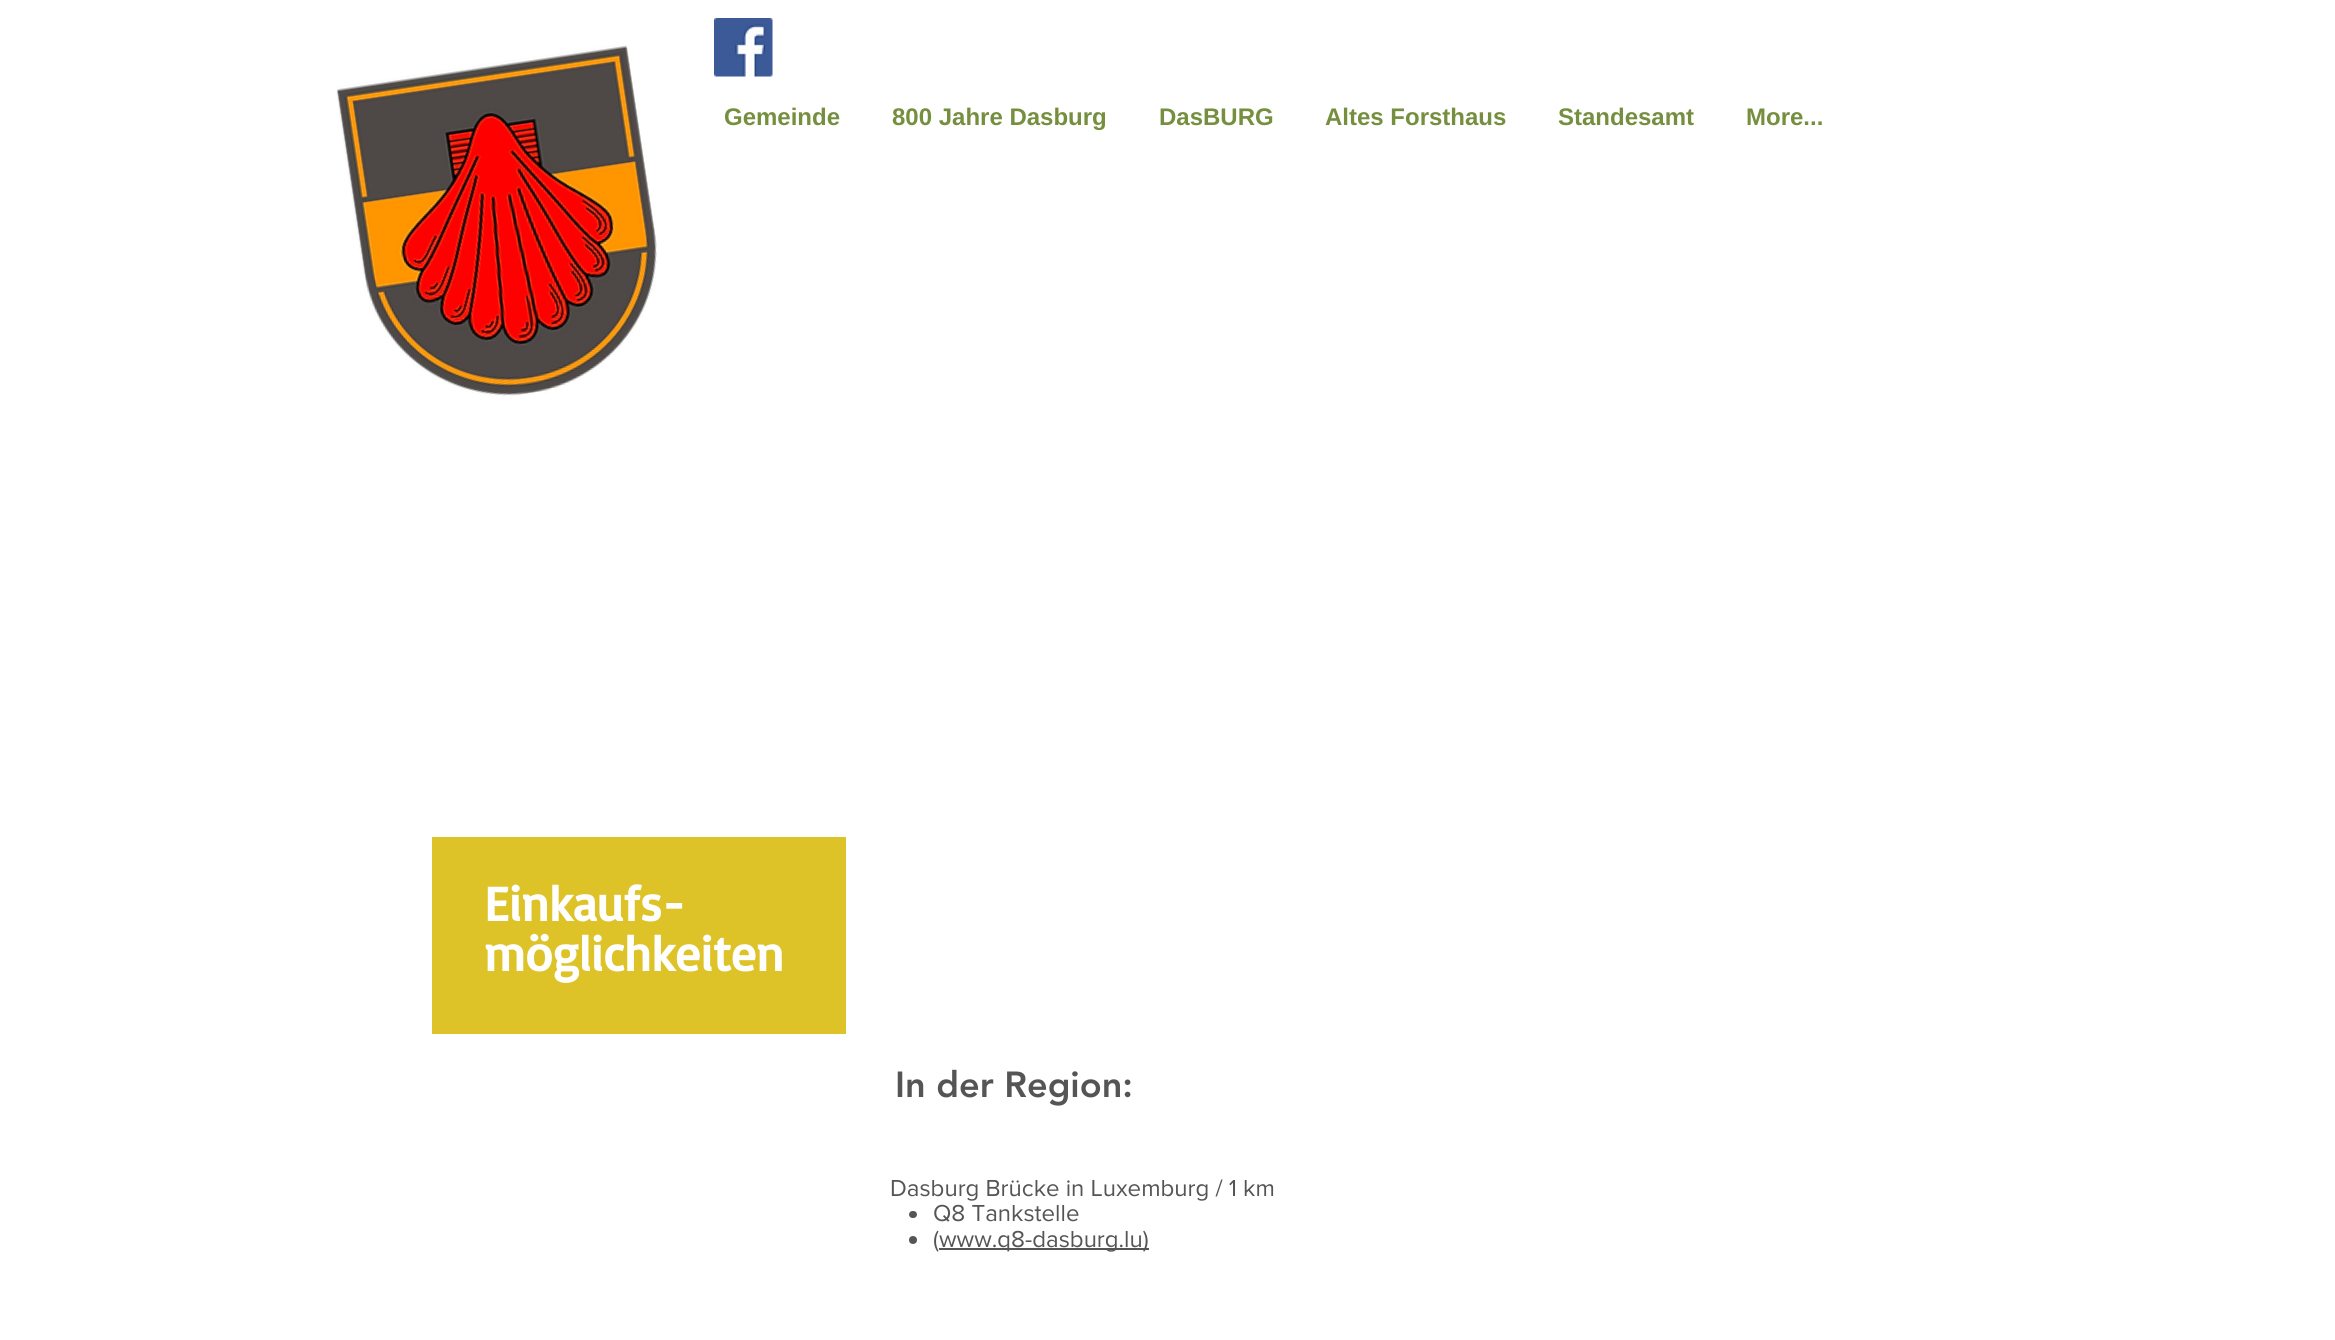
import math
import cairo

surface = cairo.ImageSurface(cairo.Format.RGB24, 2335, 1340)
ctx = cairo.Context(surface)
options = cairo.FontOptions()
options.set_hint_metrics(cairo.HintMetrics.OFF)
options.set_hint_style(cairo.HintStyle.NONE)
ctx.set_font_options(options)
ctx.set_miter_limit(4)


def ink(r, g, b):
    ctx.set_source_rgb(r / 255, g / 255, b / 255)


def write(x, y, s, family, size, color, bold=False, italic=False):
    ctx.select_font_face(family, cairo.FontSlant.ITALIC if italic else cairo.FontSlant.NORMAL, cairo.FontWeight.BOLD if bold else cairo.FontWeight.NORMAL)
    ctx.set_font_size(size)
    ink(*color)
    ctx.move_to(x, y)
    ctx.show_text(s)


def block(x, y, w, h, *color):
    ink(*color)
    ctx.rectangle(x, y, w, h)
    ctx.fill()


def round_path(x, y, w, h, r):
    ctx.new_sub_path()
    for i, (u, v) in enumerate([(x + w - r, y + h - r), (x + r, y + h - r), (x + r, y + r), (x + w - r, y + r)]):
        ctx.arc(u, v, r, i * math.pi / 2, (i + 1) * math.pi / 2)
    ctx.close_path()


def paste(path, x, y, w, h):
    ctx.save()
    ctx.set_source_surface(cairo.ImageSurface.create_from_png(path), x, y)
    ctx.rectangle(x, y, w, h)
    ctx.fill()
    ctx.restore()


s1 = dict(family="Liberation Sans", size=24, color=(117, 143, 63), bold=True)
s2 = dict(family="Basic", size=49.5, color=(255, 255, 255), bold=True)
s3 = dict(family="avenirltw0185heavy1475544 Black", size=36, color=(85, 85, 85))
s4 = dict(family="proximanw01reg", size=24, color=(85, 85, 85))

ink(255, 255, 255)
ctx.paint()
paste("pic1.png", 336, 45, 321, 351)
paste("pic2.png", 714, 18, 59, 59)
write(724, 125, "Gemeinde", **s1)
write(892, 125, "800 Jahre Dasburg", **s1)
write(1159, 125, "DasBURG", **s1)
write(1325, 125, "Altes Forsthaus", **s1)
write(1558, 125, "Standesamt", **s1)
write(1746, 125, "More...", **s1)
block(432, 837, 414, 197, 222, 195, 40)
write(484, 921, "Einkaufs-", **s2)
write(484, 971, "möglichkeiten", **s2)
write(895, 1097, "In der Region:", **s3)
write(890, 1196, "Dasburg Brücke in Luxemburg / 1 km", **s4)
round_path(909, 1211, 8, 7, 3.5)
ctx.fill()
write(933, 1221, "Q8 Tankstelle", **s4)
ctx.new_path()
ctx.arc(913, 1240, 4, 0, 2 * math.pi)
ctx.fill()
write(933, 1247, "(", **s4)
block(939, 1248, 210, 2, 85, 85, 85)
write(939, 1247, "www.q8-dasburg.lu)", **s4)
surface.write_to_png("screenshot.png")
